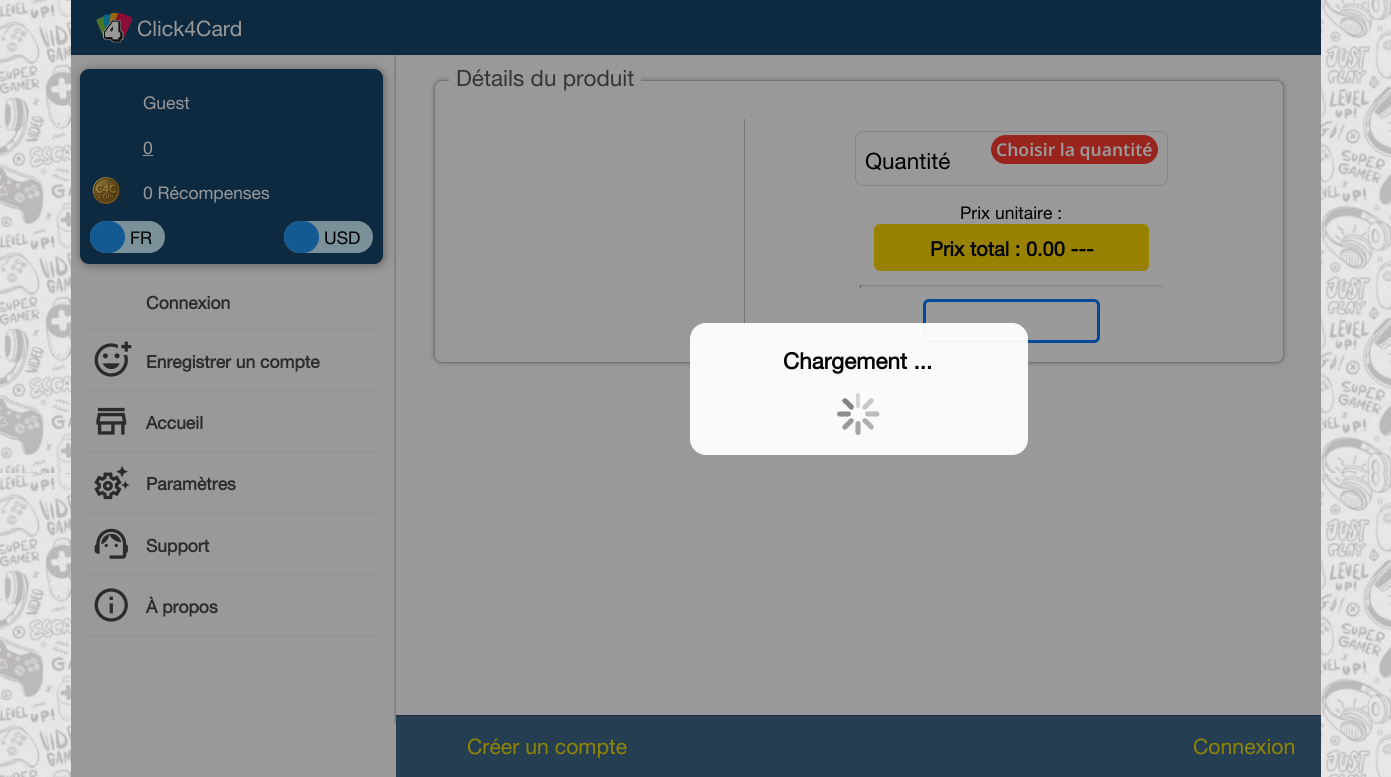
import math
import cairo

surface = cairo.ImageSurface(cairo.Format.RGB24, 1391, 777)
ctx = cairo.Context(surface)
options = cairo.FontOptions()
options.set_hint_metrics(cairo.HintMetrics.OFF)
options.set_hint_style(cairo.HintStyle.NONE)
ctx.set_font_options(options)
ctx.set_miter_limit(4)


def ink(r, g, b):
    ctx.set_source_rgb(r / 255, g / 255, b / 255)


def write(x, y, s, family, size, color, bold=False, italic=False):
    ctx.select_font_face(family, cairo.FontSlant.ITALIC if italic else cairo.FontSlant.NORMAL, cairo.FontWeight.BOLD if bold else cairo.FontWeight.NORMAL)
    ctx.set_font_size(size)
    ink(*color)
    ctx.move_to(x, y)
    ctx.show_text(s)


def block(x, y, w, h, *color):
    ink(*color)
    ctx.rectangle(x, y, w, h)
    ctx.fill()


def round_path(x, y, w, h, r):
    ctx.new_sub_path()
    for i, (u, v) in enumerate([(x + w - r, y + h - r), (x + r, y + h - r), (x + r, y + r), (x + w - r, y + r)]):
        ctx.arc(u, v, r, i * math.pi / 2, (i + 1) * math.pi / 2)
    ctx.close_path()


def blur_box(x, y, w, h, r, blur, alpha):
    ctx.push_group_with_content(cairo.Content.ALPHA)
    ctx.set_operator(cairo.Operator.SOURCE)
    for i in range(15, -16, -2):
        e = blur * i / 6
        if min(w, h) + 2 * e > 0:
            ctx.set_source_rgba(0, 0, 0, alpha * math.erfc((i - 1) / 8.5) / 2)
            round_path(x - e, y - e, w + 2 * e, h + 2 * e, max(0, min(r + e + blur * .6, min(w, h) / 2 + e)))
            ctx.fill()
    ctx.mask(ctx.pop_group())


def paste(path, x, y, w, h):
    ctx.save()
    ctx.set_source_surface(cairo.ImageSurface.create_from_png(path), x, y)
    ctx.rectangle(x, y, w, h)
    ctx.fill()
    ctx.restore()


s1 = dict(family="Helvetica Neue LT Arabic", size=21.25, color=(255, 255, 255))
s2 = dict(family="Helvetica Neue LT Arabic", size=17.5, color=(255, 255, 255))
s3 = dict(family="Helvetica Neue LT Arabic", size=17.5, color=(0, 0, 0))
s4 = dict(family="Helvetica Neue LT Arabic", size=17.5, color=(72, 72, 72), bold=True)
s5 = dict(family="Helvetica Neue LT Arabic", size=22.5, color=(91, 88, 84))
s6 = dict(family="Helvetica Neue LT Arabic", size=22.5, color=(0, 0, 0))
s7 = dict(family="Noto Sans SemiBold", size=17.5, color=(255, 255, 255))
s8 = dict(family="Helvetica Neue LT Arabic", size=20, color=(0, 0, 0), bold=True)
s9 = dict(family="Helvetica Neue LT Arabic", size=21.25, color=(239, 221, 6))
s10 = dict(family="Helvetica Neue LT Arabic", size=22.5, color=(0, 0, 0), bold=True)

ink(227, 224, 224)
ctx.paint()
paste("pic1.png", 0, 0, 1391, 777)
block(71, 55, 325, 722, 255, 255, 255)
ink(169, 169, 169)
blur_box(80, 69, 305, 197, 10, 4.5, 1)
ink(181, 176, 176)
blur_box(395, 55, 1, 668, 0, 1, 1)
block(71, 0, 1250, 55, 21, 70, 109)
paste("pic2.png", 96, 12, 37, 31)
write(137, 36, "Click4Card", **s1)
ink(21, 70, 109)
round_path(80, 69, 303, 195, 9)
ctx.fill()
write(143, 109, "Guest", **s2)
write(143, 154, "0", **s2)
block(143, 155, 10, 1, 255, 255, 255)
paste("pic3.png", 92, 177, 28, 28)
write(143, 199, "0 Récompenses", **s2)
ink(205, 241, 255)
round_path(90, 221, 75, 32, 16)
ctx.fill()
ink(33, 150, 243)
round_path(90, 221, 35, 32, 16)
ctx.fill()
write(130, 244, "FR", **s3)
ink(205, 241, 255)
round_path(284, 221, 89, 32, 16)
ctx.fill()
ink(33, 150, 243)
round_path(284, 221, 35, 32, 16)
ctx.fill()
write(324, 244, "USD", **s3)
block(86, 329, 295, 1, 240, 239, 239)
write(146, 309, "Connexion", **s4)
block(86, 390, 295, 1, 240, 239, 239)
paste("pic4.png", 94, 341, 38, 36)
write(146, 368, "Enregistrer un compte", **s4)
block(86, 451, 295, 1, 240, 239, 239)
paste("pic5.png", 96, 407, 31, 28)
write(146, 429, "Accueil", **s4)
block(86, 513, 295, 1, 240, 239, 239)
paste("pic6.png", 94, 466, 36, 34)
write(146, 490, "Paramètres", **s4)
block(86, 574, 295, 1, 240, 239, 239)
paste("pic7.png", 94, 528, 34, 31)
write(146, 552, "Support", **s4)
block(86, 635, 295, 1, 240, 239, 239)
paste("pic8.png", 94, 588, 34, 34)
write(146, 613, "À propos", **s4)
block(396, 55, 925, 660, 255, 255, 255)
ink(207, 206, 206)
blur_box(433, 79, 852, 285, 9, 2, 1)
ink(255, 255, 255)
round_path(434.5, 80.5, 849, 282, 7.5)
ctx.fill_preserve()
ink(195, 195, 195)
ctx.set_line_width(1)
ctx.stroke()
block(449, 76, 192, 5, 255, 255, 255)
write(456, 86, "Détails du produit", **s5)
block(744, 119, 1, 224, 197, 191, 191)
round_path(855.5, 131.5, 312, 54, 7.5)
ink(224, 224, 224)
ctx.stroke()
write(865, 169, "Quantité", **s6)
ink(255, 59, 48)
round_path(991, 135, 167, 29, 14.5)
ctx.fill()
write(996, 156, "Choisir la quantité", **s7)
write(960, 219, "Prix unitaire :", **s3)
ink(255, 215, 0)
round_path(874, 224, 275, 47, 6)
ctx.fill()
write(930, 256, "Prix total : 0.00 ---", **s8)
block(860, 285, 303, 1, 229, 226, 226)
block(1161, 285, 1, 3, 238, 238, 238)
block(860, 286, 303, 1, 238, 238, 238)
block(860, 285, 1, 3, 159, 159, 159)
round_path(924.5, 300.5, 174, 41, 4.5)
ink(0, 122, 255)
ctx.set_line_width(3)
ctx.stroke()
block(396, 716, 925, 61, 63, 103, 135)
block(396, 715, 925, 1, 47, 77, 101)
write(467, 754, "Créer un compte", **s9)
write(1193, 754, "Connexion", **s9)
ctx.set_source_rgba(0, 0, 0, 0.4)
ctx.rectangle(71, 0, 1250, 777)
ctx.fill()
ctx.set_source_rgba(1, 1, 1, 0.95)
round_path(690, 323, 338, 132, 16)
ctx.fill()
write(783, 369, "Chargement ...", **s10)
ink(129, 129, 129)
ctx.new_path()
ctx.move_to(843, 399)
ctx.curve_to(845.5, 396.5, 848.5, 400.5, 850, 402)
ctx.curve_to(851.5, 403.5, 855.5, 406.5, 853, 409)
ctx.curve_to(850.5, 411.5, 848, 407, 846.5, 405.5)
ctx.curve_to(845, 404, 840.5, 401.5, 843, 399)
ctx.close_path()
ctx.fill()
ink(212, 212, 212)
round_path(856, 393, 4, 15, 2)
ctx.fill()
ink(200, 200, 200)
ctx.new_path()
ctx.move_to(873, 399)
ctx.curve_to(875.5, 401.5, 871.5, 404, 870, 405.5)
ctx.curve_to(868.5, 407, 865.5, 411.5, 863, 409)
ctx.curve_to(860.5, 406.5, 865, 403.5, 866.5, 402)
ctx.curve_to(868, 400.5, 870.5, 396.5, 873, 399)
ctx.close_path()
ctx.fill()
ink(141, 141, 141)
ctx.new_path()
ctx.move_to(837, 414)
ctx.curve_to(837, 410.5, 842, 411.5, 844, 411.5)
ctx.curve_to(846, 411.5, 851, 410.5, 851, 414)
ctx.curve_to(851, 417.5, 846, 416.5, 844, 416.5)
ctx.curve_to(842, 416.5, 837, 417.5, 837, 414)
ctx.close_path()
ctx.fill()
ink(188, 188, 188)
ctx.new_path()
ctx.move_to(879.5, 414)
ctx.curve_to(879.5, 417.5, 874.5, 416.5, 872.5, 416.5)
ctx.curve_to(870, 416.5, 865, 417.5, 865, 414)
ctx.curve_to(865, 410.5, 870, 411.5, 872.5, 411.5)
ctx.curve_to(874.5, 411.5, 879.5, 410.5, 879.5, 414)
ctx.close_path()
ctx.fill()
ink(153, 153, 153)
ctx.new_path()
ctx.move_to(843, 429)
ctx.curve_to(840.5, 426.5, 845, 423.5, 846.5, 422)
ctx.curve_to(848, 420.5, 850.5, 416.5, 853, 419)
ctx.curve_to(855.5, 421.5, 851.5, 424, 850, 425.5)
ctx.curve_to(848.5, 427, 845.5, 431.5, 843, 429)
ctx.close_path()
ctx.fill()
ink(165, 165, 165)
ctx.new_path()
ctx.move_to(858, 435)
ctx.curve_to(854.5, 435, 855.5, 430, 855.5, 428)
ctx.curve_to(855.5, 426, 854.5, 421, 858, 421)
ctx.curve_to(861.5, 421, 860.5, 426, 860.5, 428)
ctx.curve_to(860.5, 430, 861.5, 435, 858, 435)
ctx.close_path()
ctx.fill()
ink(176, 176, 176)
ctx.new_path()
ctx.move_to(873, 429)
ctx.curve_to(870.5, 431.5, 868, 427, 866.5, 425.5)
ctx.curve_to(865, 424, 860.5, 421.5, 863, 419)
ctx.curve_to(865.5, 416.5, 868.5, 420.5, 870, 422)
ctx.curve_to(871.5, 423.5, 875.5, 426.5, 873, 429)
ctx.close_path()
ctx.fill()
surface.write_to_png("screenshot.png")
